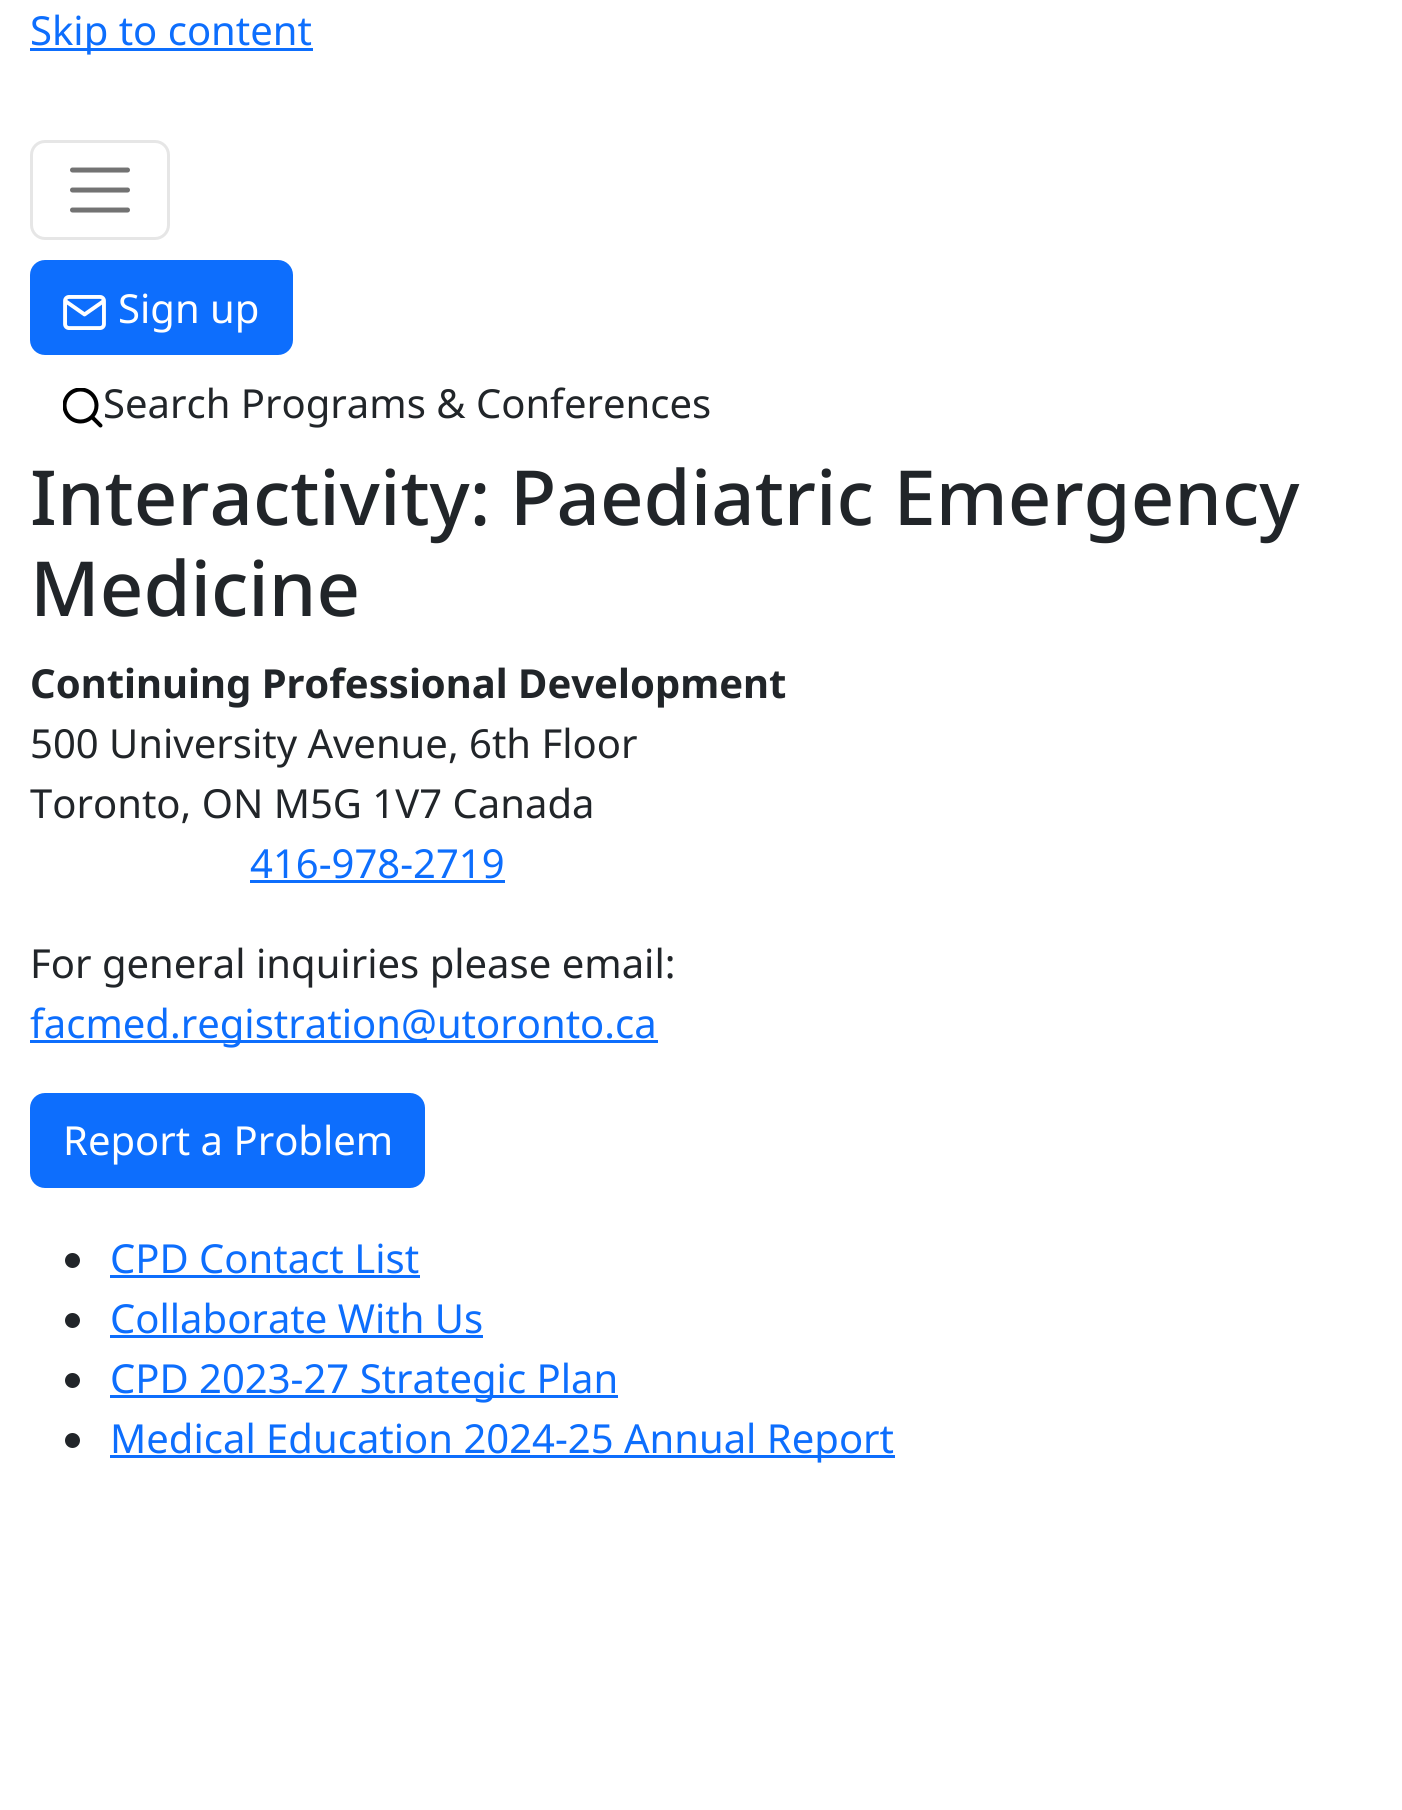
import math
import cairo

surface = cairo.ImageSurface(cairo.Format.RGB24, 1402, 1810)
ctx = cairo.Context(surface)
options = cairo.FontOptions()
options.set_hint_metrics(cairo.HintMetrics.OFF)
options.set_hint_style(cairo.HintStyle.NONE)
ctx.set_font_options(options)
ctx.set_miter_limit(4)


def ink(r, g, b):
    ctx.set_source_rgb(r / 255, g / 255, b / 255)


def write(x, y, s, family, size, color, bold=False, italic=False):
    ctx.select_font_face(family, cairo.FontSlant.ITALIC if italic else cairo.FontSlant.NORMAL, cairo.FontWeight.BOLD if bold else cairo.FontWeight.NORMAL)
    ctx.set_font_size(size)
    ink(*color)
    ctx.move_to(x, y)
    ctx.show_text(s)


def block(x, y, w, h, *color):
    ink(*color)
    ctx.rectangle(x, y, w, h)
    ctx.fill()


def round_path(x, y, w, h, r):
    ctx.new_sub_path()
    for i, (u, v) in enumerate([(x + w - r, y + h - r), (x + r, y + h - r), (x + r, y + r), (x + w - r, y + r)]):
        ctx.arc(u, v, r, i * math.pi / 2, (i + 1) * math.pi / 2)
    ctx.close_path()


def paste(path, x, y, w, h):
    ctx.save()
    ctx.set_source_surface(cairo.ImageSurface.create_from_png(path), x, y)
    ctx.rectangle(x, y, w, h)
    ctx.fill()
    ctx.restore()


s1 = dict(family="Noto Sans", size=40, color=(13, 110, 253))
s2 = dict(family="Noto Sans", size=40, color=(255, 255, 255))
s3 = dict(family="Noto Sans", size=40, color=(33, 37, 41))
s4 = dict(family="Noto Sans Medium", size=76, color=(33, 37, 41))
s5 = dict(family="Noto Sans", size=40, color=(33, 37, 41), bold=True)

ink(255, 255, 255)
ctx.paint()
block(30, 48, 283, 3, 13, 110, 253)
write(30, 45, "Skip to content", **s1)
round_path(31.5, 141.5, 137, 97, 13.5)
ink(230, 230, 230)
ctx.set_line_width(3)
ctx.stroke()
ctx.new_path()
ctx.move_to(72.5, 170)
ctx.line_to(127.5, 170)
ctx.move_to(72.5, 190)
ctx.line_to(127.5, 190)
ctx.move_to(72.5, 210)
ctx.line_to(127.5, 210)
ink(115, 115, 115)
ctx.set_line_width(5)
ctx.set_line_cap(cairo.LineCap.ROUND)
ctx.stroke()
ink(13, 110, 253)
round_path(31.5, 261.5, 260, 92, 13.5)
ctx.fill_preserve()
ctx.set_line_width(3)
ctx.set_line_cap(cairo.LineCap.BUTT)
ctx.stroke()
paste("pic1.png", 63, 295, 43, 35)
write(118, 323, "Sign up", **s2)
paste("pic2.png", 63, 388, 40, 40)
write(103, 418, "Search Programs & Conferences", **s3)
write(30, 525, "Interactivity: Paediatric Emergency", **s4)
write(30, 616, "Medicine", **s4)
write(30, 698, "Continuing Professional Development", **s5)
write(30, 758, "500 University Avenue, 6th Floor", **s3)
write(30, 818, "Toronto, ON M5G 1V7 Canada", **s3)
write(250, 878, "416-978-2719", **s1)
block(250, 880, 255, 3, 13, 110, 253)
write(30, 978, "For general inquiries please email:", **s3)
block(30, 1040, 628, 3, 13, 110, 253)
write(30, 1038, "facmed.registration@utoronto.ca", **s1)
round_path(31.5, 1094.5, 392, 92, 13.5)
ctx.fill_preserve()
ctx.stroke()
write(63, 1155, "Report a Problem", **s2)
ink(33, 37, 41)
ctx.new_path()
ctx.arc(72.5, 1260.5, 7.5, 0, 2 * math.pi)
ctx.fill()
write(110, 1273, "CPD Contact List", **s1)
block(110, 1275, 310, 3, 13, 110, 253)
ink(33, 37, 41)
ctx.new_path()
ctx.arc(72.5, 1320.5, 7.5, 0, 2 * math.pi)
ctx.fill()
write(110, 1333, "Collaborate With Us", **s1)
block(110, 1335, 373, 3, 13, 110, 253)
ink(33, 37, 41)
ctx.new_path()
ctx.arc(72.5, 1380.5, 7.5, 0, 2 * math.pi)
ctx.fill()
block(110, 1395, 508, 3, 13, 110, 253)
write(110, 1393, "CPD 2023-27 Strategic Plan", **s1)
ink(33, 37, 41)
ctx.new_path()
ctx.arc(72.5, 1440.5, 7.5, 0, 2 * math.pi)
ctx.fill()
block(110, 1455, 785, 3, 13, 110, 253)
write(110, 1453, "Medical Education 2024-25 Annual Report", **s1)
surface.write_to_png("screenshot.png")
